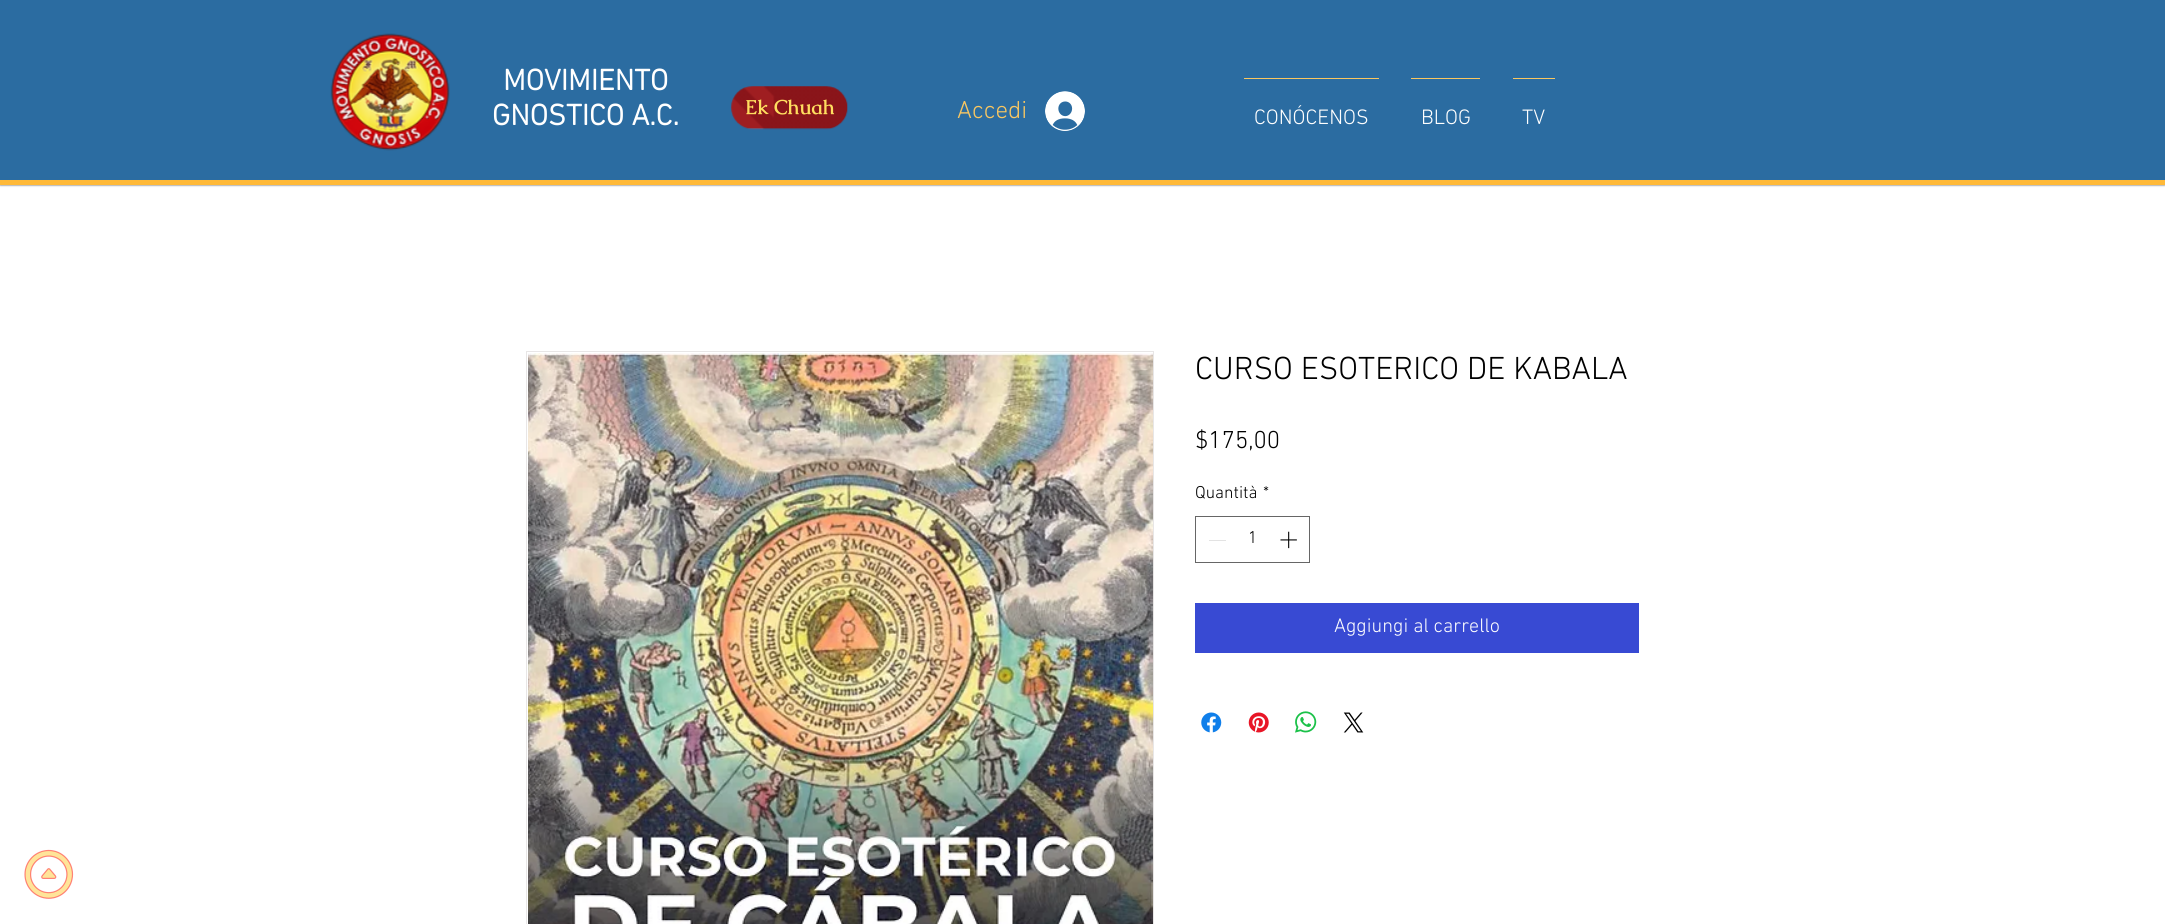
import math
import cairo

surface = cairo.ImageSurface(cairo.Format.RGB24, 2165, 924)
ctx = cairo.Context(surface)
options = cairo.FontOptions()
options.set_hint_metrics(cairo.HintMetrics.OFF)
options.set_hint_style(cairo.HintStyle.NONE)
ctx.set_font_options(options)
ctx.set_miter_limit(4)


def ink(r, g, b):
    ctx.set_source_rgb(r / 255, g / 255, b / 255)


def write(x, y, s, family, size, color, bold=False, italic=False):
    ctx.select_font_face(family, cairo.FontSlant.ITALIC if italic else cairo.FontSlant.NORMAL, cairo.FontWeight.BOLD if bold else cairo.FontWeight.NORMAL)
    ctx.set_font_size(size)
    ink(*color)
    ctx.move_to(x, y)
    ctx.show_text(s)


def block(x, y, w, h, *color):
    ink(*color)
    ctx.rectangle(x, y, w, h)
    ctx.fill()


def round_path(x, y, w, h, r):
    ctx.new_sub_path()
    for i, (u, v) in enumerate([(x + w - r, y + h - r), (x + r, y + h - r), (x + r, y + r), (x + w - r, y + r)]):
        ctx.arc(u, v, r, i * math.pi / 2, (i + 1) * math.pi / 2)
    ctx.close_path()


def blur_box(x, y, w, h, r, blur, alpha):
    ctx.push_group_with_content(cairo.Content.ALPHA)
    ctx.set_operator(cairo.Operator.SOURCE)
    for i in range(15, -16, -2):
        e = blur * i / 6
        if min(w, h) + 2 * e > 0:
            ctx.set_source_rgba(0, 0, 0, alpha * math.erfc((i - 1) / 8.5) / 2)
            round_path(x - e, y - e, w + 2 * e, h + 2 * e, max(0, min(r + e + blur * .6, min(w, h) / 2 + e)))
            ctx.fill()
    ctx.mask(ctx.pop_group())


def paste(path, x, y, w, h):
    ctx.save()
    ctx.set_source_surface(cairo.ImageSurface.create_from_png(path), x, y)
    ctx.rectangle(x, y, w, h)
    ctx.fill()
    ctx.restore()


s1 = dict(family="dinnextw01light", size=30, color=(255, 255, 255), bold=True)
s2 = dict(family="Caudex", size=20, color=(255, 222, 95), bold=True)
s3 = dict(family="dinnextw01light Light", size=25, color=(250, 199, 97))
s4 = dict(family="dinnextw01light Light", size=21.25, color=(255, 255, 255))
s5 = dict(family="dinnextw01light Light", size=32.5, color=(0, 0, 0))
s6 = dict(family="dinnextw01light Light", size=25, color=(0, 0, 0))
s7 = dict(family="dinnextw01light Light", size=17.5, color=(0, 0, 0))
s8 = dict(family="dinnextw01light Light", size=20, color=(255, 255, 255))

ink(255, 255, 255)
ctx.paint()
ink(0, 0, 0)
blur_box(0, 0, 2165, 185, 0, 1, 0.7)
block(0, 0, 2165, 180, 43, 108, 161)
block(0, 180, 2165, 5, 255, 185, 56)
paste("pic1.png", 330, 33, 120, 118)
write(503, 90, "MOVIMIENTO", **s1)
write(492, 125, "GNOSTICO A.C.", **s1)
paste("pic2.png", 731, 86, 117, 44)
write(745, 114, "Ek Chuah", **s2)
write(957, 118, "Accedi", **s3)
paste("pic3.png", 1045, 91, 40, 40)
block(1244, 78, 135, 1, 250, 199, 97)
write(1254, 124, "CONÓCENOS", **s4)
block(1411, 78, 69, 1, 250, 199, 97)
write(1421, 124, "BLOG", **s4)
block(1513, 78, 42, 1, 250, 199, 97)
write(1522, 124, "TV", **s4)
ctx.rectangle(526.5, 351.5, 627, 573)
ink(232, 230, 230)
ctx.set_line_width(1)
ctx.stroke()
paste("pic4.png", 528, 353, 625, 571)
write(1195, 379, "CURSO ESOTERICO DE KABALA", **s5)
write(1195, 448, "$175,00", **s6)
write(1195, 498, "Quantità", **s7)
write(1263, 498, "*", **s7)
ctx.rectangle(1195.5, 516.5, 114, 46)
ink(102, 102, 102)
ctx.stroke()
block(1209, 540, 17, 1, 227, 227, 227)
write(1248, 543, "1", **s7)
paste("pic5.png", 1280, 531, 17, 18)
block(1195, 603, 444, 50, 56, 74, 211)
write(1334, 632, "Aggiungi al carrello", **s8)
paste("pic6.png", 1201, 712, 21, 21)
paste("pic7.png", 1248, 712, 21, 21)
paste("pic8.png", 1295, 711, 22, 22)
paste("pic9.png", 1343, 712, 21, 21)
paste("pic10.png", 24, 849, 50, 50)
surface.write_to_png("screenshot.png")
